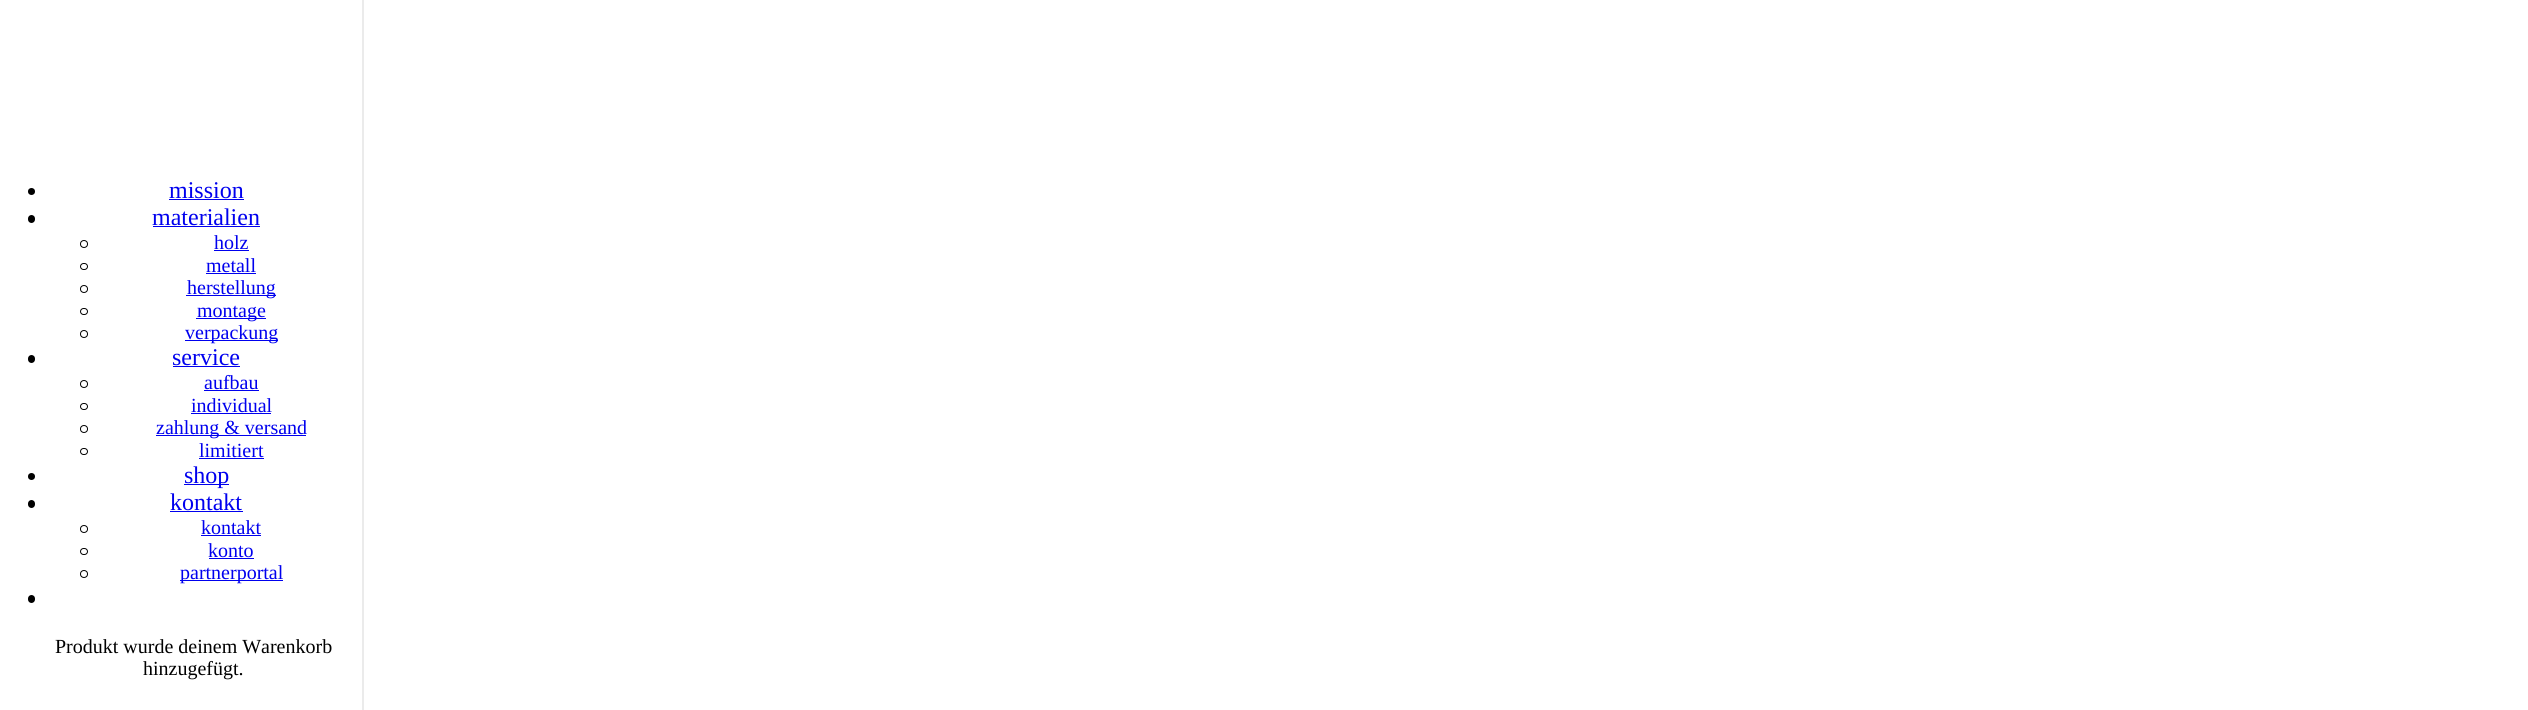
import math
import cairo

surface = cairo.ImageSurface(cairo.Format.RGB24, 2528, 710)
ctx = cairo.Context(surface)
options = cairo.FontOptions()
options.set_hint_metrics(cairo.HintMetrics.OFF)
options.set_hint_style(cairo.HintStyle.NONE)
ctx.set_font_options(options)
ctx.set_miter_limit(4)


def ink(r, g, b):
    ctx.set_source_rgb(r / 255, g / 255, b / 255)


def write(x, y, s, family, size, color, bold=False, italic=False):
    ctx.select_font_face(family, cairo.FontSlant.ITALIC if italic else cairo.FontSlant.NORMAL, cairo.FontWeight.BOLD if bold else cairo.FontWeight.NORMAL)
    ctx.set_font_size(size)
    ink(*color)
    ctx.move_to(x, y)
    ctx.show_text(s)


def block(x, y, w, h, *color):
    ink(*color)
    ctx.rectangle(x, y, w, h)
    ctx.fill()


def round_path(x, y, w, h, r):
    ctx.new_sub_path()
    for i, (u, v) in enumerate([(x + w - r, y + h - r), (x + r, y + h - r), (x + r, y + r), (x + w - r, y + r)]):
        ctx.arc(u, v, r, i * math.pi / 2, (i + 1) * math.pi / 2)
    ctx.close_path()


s1 = dict(family="Liberation Serif", size=24, color=(0, 0, 238))
s2 = dict(family="Liberation Serif", size=20, color=(0, 0, 238))
s3 = dict(family="Liberation Serif", size=20, color=(0, 0, 0))

ink(255, 255, 255)
ctx.paint()
block(362, 0, 2, 710, 235, 235, 235)
ink(0, 0, 0)
ctx.arc(31.5, 191.5, 3.5, 0, 2 * math.pi)
ctx.fill()
write(169, 198, "mission", **s1)
block(169, 199, 75, 1, 0, 0, 238)
ink(0, 0, 0)
round_path(28, 215, 7, 8, 3.5)
ctx.fill()
write(152, 225, "materialien", **s1)
block(153, 226, 107, 1, 0, 0, 238)
ctx.new_path()
ctx.arc(84, 244, 3.5, 0, 2 * math.pi)
ink(0, 0, 0)
ctx.set_line_width(1)
ctx.stroke()
write(214, 249, "holz", **s2)
block(214, 250, 35, 1, 0, 0, 238)
round_path(80.5, 263.5, 7, 6, 3)
ink(0, 0, 0)
ctx.stroke()
write(206, 272, "metall", **s2)
block(206, 273, 50, 1, 0, 0, 238)
ctx.new_path()
ctx.arc(84, 289, 3.5, 0, 2 * math.pi)
ink(0, 0, 0)
ctx.stroke()
block(186, 295, 90, 1, 0, 0, 238)
write(187, 294, "herstellung", **s2)
round_path(80.5, 308.5, 7, 6, 3)
ink(0, 0, 0)
ctx.stroke()
block(196, 318, 70, 1, 0, 0, 238)
write(197, 317, "montage", **s2)
ctx.new_path()
ctx.arc(84, 334, 3.5, 0, 2 * math.pi)
ink(0, 0, 0)
ctx.stroke()
block(185, 340, 93, 1, 0, 0, 238)
write(185, 339, "verpackung", **s2)
ink(0, 0, 0)
round_path(28, 355, 7, 8, 3.5)
ctx.fill()
write(172, 365, "service", **s1)
block(173, 366, 67, 1, 0, 0, 238)
ctx.new_path()
ctx.arc(84, 384, 3.5, 0, 2 * math.pi)
ink(0, 0, 0)
ctx.stroke()
write(204, 389, "aufbau", **s2)
block(204, 390, 55, 1, 0, 0, 238)
round_path(80.5, 403.5, 7, 6, 3)
ink(0, 0, 0)
ctx.stroke()
write(191, 412, "individual", **s2)
block(191, 413, 80, 1, 0, 0, 238)
ctx.new_path()
ctx.arc(84, 429, 3.5, 0, 2 * math.pi)
ink(0, 0, 0)
ctx.stroke()
block(156, 435, 150, 1, 0, 0, 238)
write(156, 434, "zahlung & versand", **s2)
round_path(80.5, 448.5, 7, 6, 3)
ink(0, 0, 0)
ctx.stroke()
write(199, 457, "limitiert", **s2)
block(199, 458, 65, 1, 0, 0, 238)
ink(0, 0, 0)
ctx.new_path()
ctx.arc(31.5, 476.5, 3.5, 0, 2 * math.pi)
ctx.fill()
block(184, 484, 45, 1, 0, 0, 238)
write(184, 483, "shop", **s1)
ink(0, 0, 0)
round_path(28, 500, 7, 8, 3.5)
ctx.fill()
write(170, 510, "kontakt", **s1)
block(170, 511, 73, 1, 0, 0, 238)
ctx.new_path()
ctx.arc(84, 529, 3.5, 0, 2 * math.pi)
ink(0, 0, 0)
ctx.stroke()
write(201, 534, "kontakt", **s2)
block(201, 535, 60, 1, 0, 0, 238)
round_path(80.5, 548.5, 7, 6, 3)
ink(0, 0, 0)
ctx.stroke()
write(208, 557, "konto", **s2)
block(209, 558, 45, 1, 0, 0, 238)
ctx.new_path()
ctx.arc(84, 574, 3.5, 0, 2 * math.pi)
ink(0, 0, 0)
ctx.stroke()
block(180, 580, 103, 1, 0, 0, 238)
write(180, 579, "partnerportal", **s2)
ink(0, 0, 0)
round_path(28, 595, 7, 8, 3.5)
ctx.fill()
write(55, 653, "Produkt wurde deinem Warenkorb", **s3)
write(143, 675, "hinzugefügt.", **s3)
surface.write_to_png("screenshot.png")
